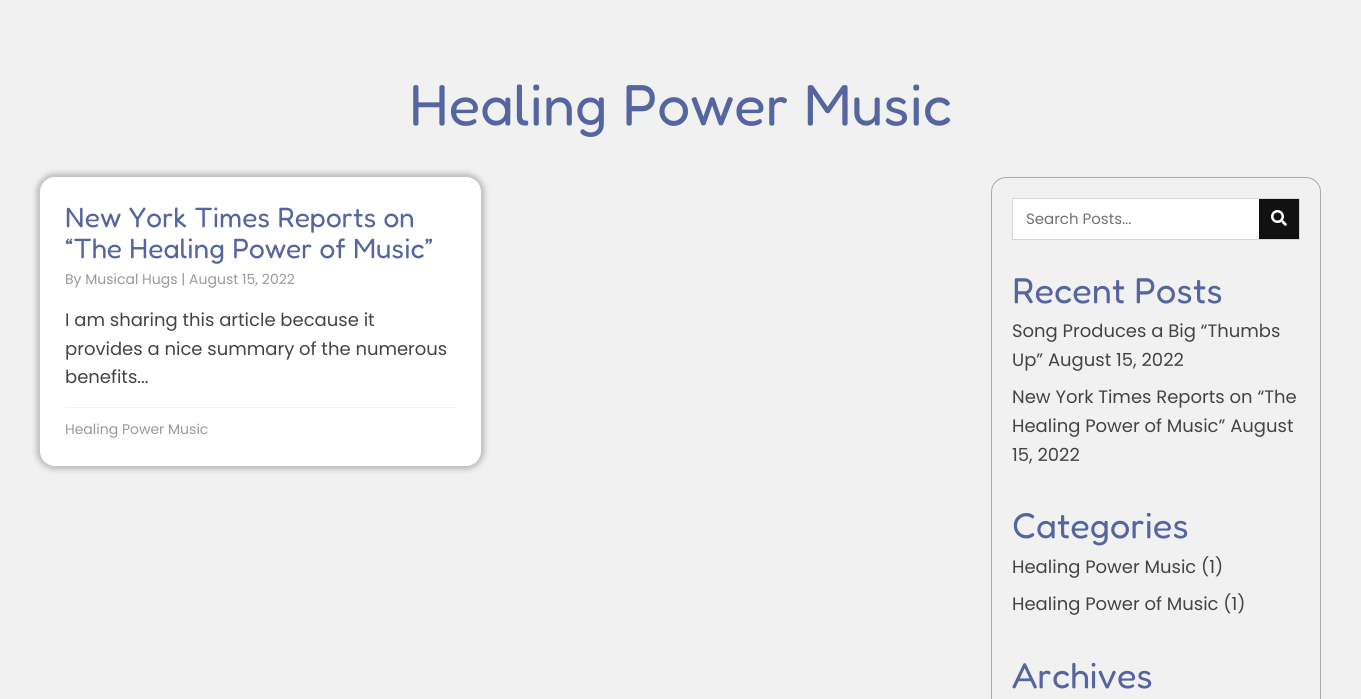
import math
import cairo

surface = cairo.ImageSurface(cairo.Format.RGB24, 1361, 699)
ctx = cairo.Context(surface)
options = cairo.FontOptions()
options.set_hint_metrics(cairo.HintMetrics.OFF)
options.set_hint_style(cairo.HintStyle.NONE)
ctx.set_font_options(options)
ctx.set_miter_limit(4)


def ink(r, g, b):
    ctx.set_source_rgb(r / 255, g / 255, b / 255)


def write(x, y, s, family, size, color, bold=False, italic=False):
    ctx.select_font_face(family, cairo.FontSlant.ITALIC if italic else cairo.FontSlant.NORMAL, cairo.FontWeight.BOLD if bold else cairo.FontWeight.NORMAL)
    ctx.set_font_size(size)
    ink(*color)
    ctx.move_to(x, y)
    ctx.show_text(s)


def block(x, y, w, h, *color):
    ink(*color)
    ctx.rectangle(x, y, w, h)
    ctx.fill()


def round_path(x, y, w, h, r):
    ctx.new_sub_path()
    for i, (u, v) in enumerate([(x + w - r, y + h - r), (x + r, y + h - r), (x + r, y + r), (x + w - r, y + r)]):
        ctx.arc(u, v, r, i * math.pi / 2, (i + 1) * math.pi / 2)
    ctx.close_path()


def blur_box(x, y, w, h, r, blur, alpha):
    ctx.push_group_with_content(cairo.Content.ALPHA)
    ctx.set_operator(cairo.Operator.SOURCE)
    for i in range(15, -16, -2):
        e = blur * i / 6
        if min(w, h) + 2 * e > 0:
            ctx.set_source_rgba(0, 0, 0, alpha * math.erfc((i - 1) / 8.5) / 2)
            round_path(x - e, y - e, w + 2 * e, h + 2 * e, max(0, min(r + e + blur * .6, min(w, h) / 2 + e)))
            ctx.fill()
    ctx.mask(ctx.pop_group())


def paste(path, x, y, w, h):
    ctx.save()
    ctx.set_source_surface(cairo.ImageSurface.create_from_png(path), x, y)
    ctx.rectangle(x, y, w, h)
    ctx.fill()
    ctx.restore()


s1 = dict(family="Fredoka Light", size=58, color=(84, 101, 159))
s2 = dict(family="Fredoka Light", size=28, color=(84, 101, 159))
s3 = dict(family="Poppins", size=14, color=(153, 153, 153))
s4 = dict(family="Poppins", size=18, color=(68, 68, 68))
s5 = dict(family="Poppins", size=15, color=(112, 112, 112))
s6 = dict(family="Fredoka Light", size=36, color=(84, 101, 159))

ink(241, 241, 241)
ctx.paint()
write(409, 125, "Healing Power Music", **s1)
ink(0, 0, 0)
blur_box(36, 173, 449, 297, 19, 2.5, 0.2)
ink(255, 255, 255)
round_path(40, 177, 441, 289, 15)
ctx.fill()
write(65, 227, "New York Times Reports on", **s2)
write(65, 258, "“The Healing Power of Music”", **s2)
write(65, 284, "By Musical Hugs | August 15, 2022", **s3)
write(65, 326, "I am sharing this article because it", **s4)
write(65, 355, "provides a nice summary of the numerous", **s4)
write(65, 383, "benefits...", **s4)
block(65, 407, 391, 1, 243, 243, 243)
write(65, 434, "Healing Power Music", **s3)
round_path(991.5, 177.5, 329, 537, 14.5)
ink(170, 170, 170)
ctx.set_line_width(1)
ctx.stroke()
block(1013, 199, 246, 40, 255, 255, 255)
ctx.rectangle(1012.5, 198.5, 287, 41)
ink(214, 214, 214)
ctx.stroke()
write(1026, 224, "Search Posts...", **s5)
block(1259, 199, 40, 40, 17, 17, 17)
paste("pic1.png", 1271, 210, 16, 16)
write(1012, 303, "Recent Posts", **s6)
write(1012, 337, "Song Produces a Big “Thumbs", **s4)
write(1012, 366, "Up” August 15, 2022", **s4)
write(1012, 403, "New York Times Reports on “The", **s4)
write(1012, 432, "Healing Power of Music” August", **s4)
write(1012, 461, "15, 2022", **s4)
write(1012, 538, "Categories", **s6)
write(1012, 573, "Healing Power Music (1)", **s4)
write(1012, 610, "Healing Power of Music (1)", **s4)
write(1012, 688, "Archives", **s6)
surface.write_to_png("screenshot.png")
